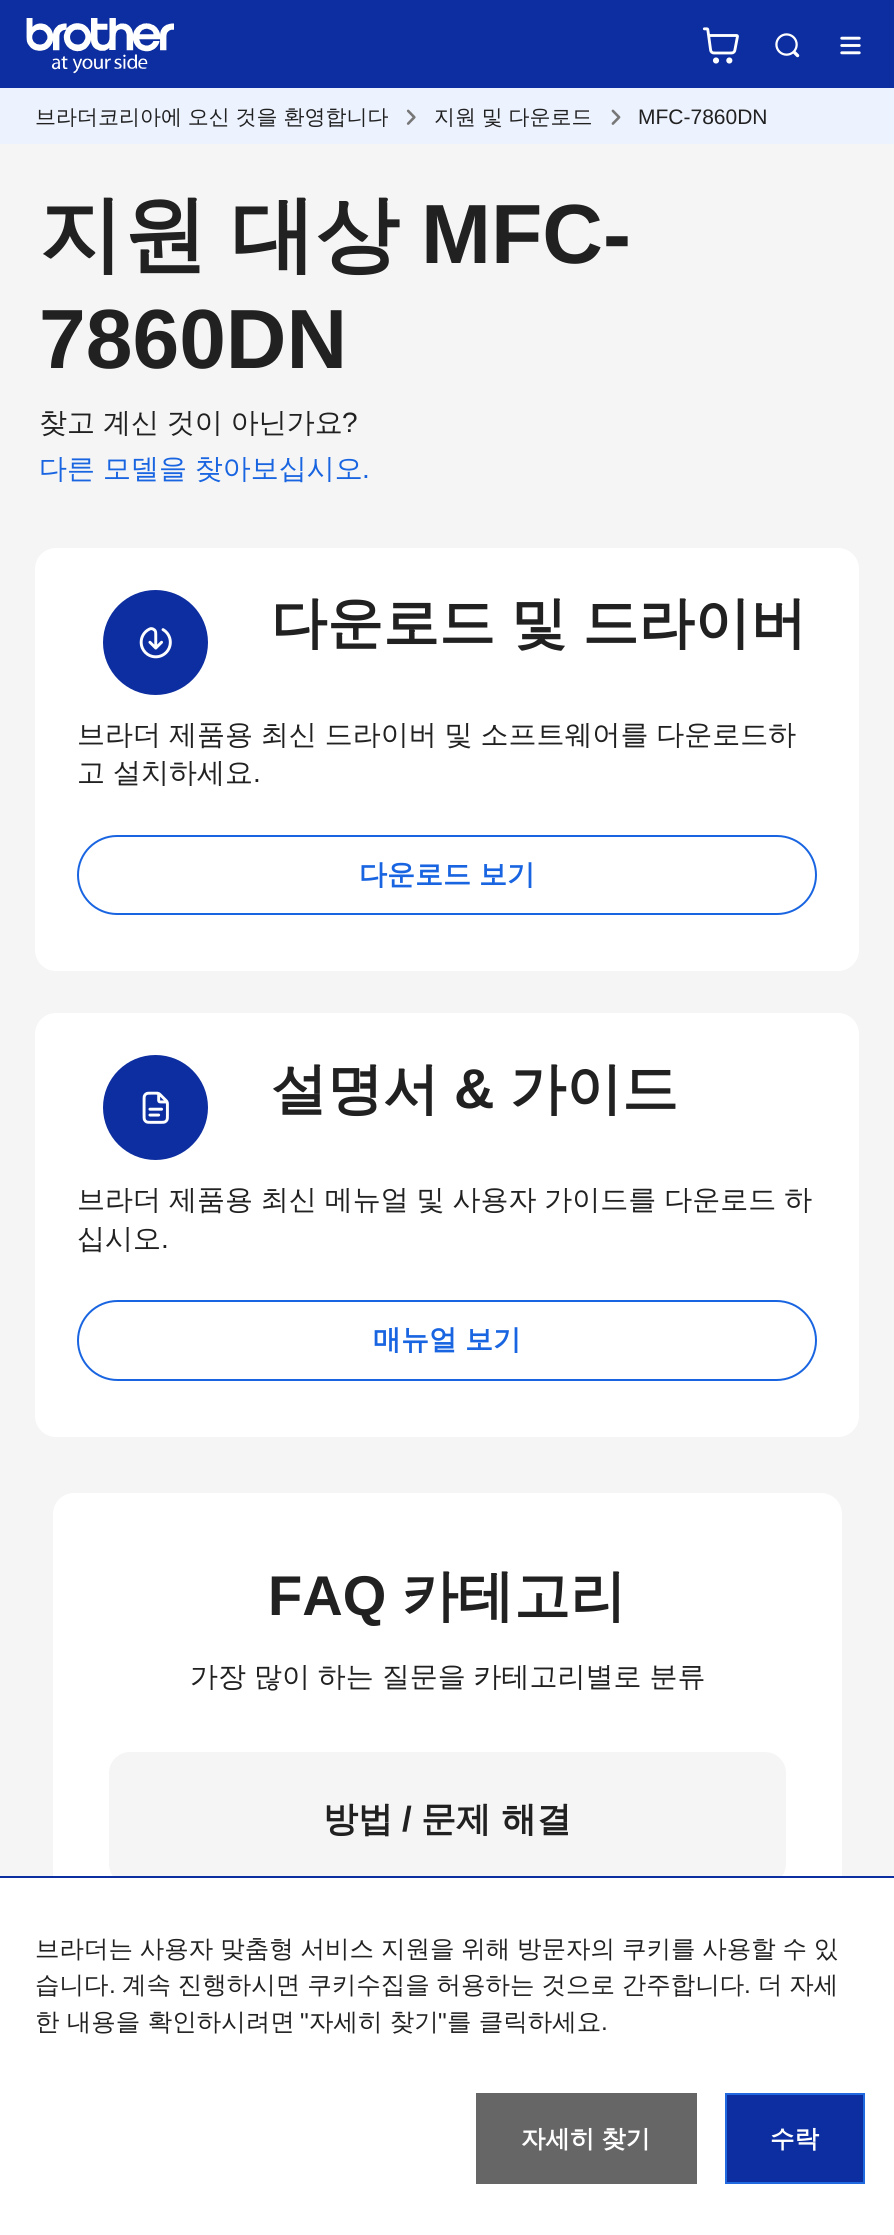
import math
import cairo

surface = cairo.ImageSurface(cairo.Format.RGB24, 894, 2235)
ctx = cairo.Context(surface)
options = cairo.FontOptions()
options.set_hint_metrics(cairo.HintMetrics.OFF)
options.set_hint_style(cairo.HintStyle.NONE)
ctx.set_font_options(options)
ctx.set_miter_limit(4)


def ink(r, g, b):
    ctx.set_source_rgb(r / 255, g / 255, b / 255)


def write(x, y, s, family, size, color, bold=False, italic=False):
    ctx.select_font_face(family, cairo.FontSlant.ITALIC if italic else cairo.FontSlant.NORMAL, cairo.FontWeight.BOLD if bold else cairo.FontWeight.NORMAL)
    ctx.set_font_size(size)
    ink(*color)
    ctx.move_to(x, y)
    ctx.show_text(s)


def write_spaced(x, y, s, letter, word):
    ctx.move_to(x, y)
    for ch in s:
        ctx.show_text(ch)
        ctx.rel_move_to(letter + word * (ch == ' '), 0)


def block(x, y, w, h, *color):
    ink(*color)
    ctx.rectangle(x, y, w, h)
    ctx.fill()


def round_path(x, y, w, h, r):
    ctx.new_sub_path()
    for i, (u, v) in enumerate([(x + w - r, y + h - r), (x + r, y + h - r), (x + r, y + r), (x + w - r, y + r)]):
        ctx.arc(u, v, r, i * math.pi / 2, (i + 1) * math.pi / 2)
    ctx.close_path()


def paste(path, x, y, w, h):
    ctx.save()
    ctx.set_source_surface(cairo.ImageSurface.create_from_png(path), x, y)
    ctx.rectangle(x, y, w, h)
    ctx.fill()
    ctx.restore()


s1 = dict(family="Liberation Sans", size=21, color=(33, 33, 33))
s2 = dict(family="Liberation Sans", size=84, color=(33, 33, 33), bold=True)
s3 = dict(family="Liberation Sans", size=28, color=(33, 33, 33))
s4 = dict(family="Liberation Sans", size=28, color=(25, 101, 225))
s5 = dict(family="WenQuanYi Zen Hei", size=56, color=(33, 33, 33), bold=True)
s6 = dict(family="Liberation Sans", size=56, color=(33, 33, 33), bold=True)
s7 = dict(family="WenQuanYi Zen Hei Medium", size=28, color=(33, 33, 33))
s8 = dict(family="WenQuanYi Zen Hei", size=35, color=(33, 33, 33), bold=True)
s9 = dict(family="Liberation Sans", size=35, color=(33, 33, 33), bold=True)
s10 = dict(family="WenQuanYi Zen Hei Medium", size=24.5, color=(33, 33, 33))
s11 = dict(family="Liberation Sans", size=24.5, color=(33, 33, 33))
s12 = dict(family="WenQuanYi Zen Hei", size=24.5, color=(255, 255, 255), bold=True)

ink(245, 245, 245)
ctx.paint()
block(0, 0, 894, 88, 13, 46, 160)
paste("pic1.png", 26, 18, 148, 56)
paste("pic2.png", 702, 27, 37, 37)
paste("pic3.png", 775, 33, 25, 25)
paste("pic4.png", 840, 36, 21, 19)
block(0, 88, 894, 56, 236, 242, 254)
ctx.select_font_face("WenQuanYi Zen Hei Medium")
ctx.set_font_size(21)
ink(33, 33, 33)
write_spaced(35, 124, "브라더코리아에 오신 것을 환영합니다", 0, -0.5)
paste("pic5.png", 406, 109, 10, 16)
write_spaced(434, 124, "지원 및 다운로드", 0, -0.5)
paste("pic6.png", 611, 109, 10, 16)
write(638, 124, "MFC-7860DN", **s1)
ctx.select_font_face("WenQuanYi Zen Hei", cairo.FontSlant.NORMAL, cairo.FontWeight.BOLD)
ctx.set_font_size(84)
write_spaced(39, 263, "지원 대상", 0, -1)
write(421, 263, "MFC-", **s2)
write(39, 368, "7860DN", **s2)
ctx.select_font_face("WenQuanYi Zen Hei Medium")
ctx.set_font_size(28)
write_spaced(39, 432, "찾고 계신 것이 아닌가요", 0, -0.5)
write(342, 432, "?", **s3)
ctx.select_font_face("WenQuanYi Zen Hei Medium")
ink(25, 101, 225)
write_spaced(39, 478, "다른 모델을 찾아보십시오", 0, -0.5)
write(362, 478, ".", **s4)
ink(255, 255, 255)
round_path(35, 548, 824, 423, 21)
ctx.fill()
ink(13, 46, 160)
ctx.arc(155.5, 642.5, 52.5, 0, 2 * math.pi)
ctx.fill()
paste("pic7.png", 139, 627, 33, 32)
ctx.select_font_face("WenQuanYi Zen Hei", cairo.FontSlant.NORMAL, cairo.FontWeight.BOLD)
ctx.set_font_size(56)
ink(33, 33, 33)
write_spaced(271, 642, "다운로드 및 드라이버", 0, -1)
ctx.select_font_face("WenQuanYi Zen Hei Medium")
ctx.set_font_size(28)
write_spaced(77, 744, "브라더 제품용 최신 드라이버 및 소프트웨어를 다운로드하", 0, -0.5)
write_spaced(77, 782, "고 설치하세요", 0, -0.5)
write(253, 782, ".", **s3)
round_path(78, 836, 738, 78, 39)
ink(25, 101, 225)
ctx.stroke()
ctx.select_font_face("WenQuanYi Zen Hei", cairo.FontSlant.NORMAL, cairo.FontWeight.BOLD)
write_spaced(359, 884, "다운로드 보기", 0, -0.5)
ink(255, 255, 255)
round_path(35, 1013, 824, 424, 21)
ctx.fill()
ink(13, 46, 160)
ctx.arc(155.5, 1107.5, 52.5, 0, 2 * math.pi)
ctx.fill()
paste("pic8.png", 142, 1091, 27, 33)
write(271, 1108, "설명서", **s5)
write(454, 1108, "&", **s6)
write(510, 1108, "가이드", **s5)
ctx.select_font_face("WenQuanYi Zen Hei Medium")
ctx.set_font_size(28)
write_spaced(77, 1209, "브라더 제품용 최신 메뉴얼 및 사용자 가이드를 다운로드 하", 0, -0.5)
write(77, 1248, "십시오", **s7)
write(161, 1248, ".", **s3)
round_path(78, 1301, 738, 79, 39.5)
ink(25, 101, 225)
ctx.stroke()
ctx.select_font_face("WenQuanYi Zen Hei", cairo.FontSlant.NORMAL, cairo.FontWeight.BOLD)
write_spaced(373, 1349, "매뉴얼 보기", 0, -0.5)
ink(255, 255, 255)
round_path(53, 1493, 789, 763, 21)
ctx.fill()
write(268, 1615, "FAQ", **s6)
write(402, 1615, "카테고리", **s5)
ctx.select_font_face("WenQuanYi Zen Hei Medium")
ctx.set_font_size(28)
write_spaced(190, 1686, "가장 많이 하는 질문을 카테고리별로 분류", 0, -0.5)
ink(245, 245, 245)
round_path(109, 1752, 677, 133, 21)
ctx.fill()
write(323, 1831, "방법", **s8)
write(402, 1831, "/", **s9)
write(421, 1831, "문제 해결", **s8)
block(0, 1878, 894, 357, 255, 255, 255)
block(0, 1876, 894, 2, 13, 46, 160)
ctx.select_font_face("WenQuanYi Zen Hei Medium")
ctx.set_font_size(24.5)
ink(33, 33, 33)
write_spaced(35, 1957, "브라더는 사용자 맞춤형 서비스 지원을 위해 방문자의 쿠키를 사용할 수 있", 0, -0.5)
write(35, 1993, "습니다", **s10)
write(109, 1993, ".", **s11)
ctx.select_font_face("WenQuanYi Zen Hei Medium")
write_spaced(122, 1993, "계속 진행하시면 쿠키수집을 허용하는 것으로 간주합니다", 0, -0.5)
write(744, 1993, ".", **s11)
ctx.select_font_face("WenQuanYi Zen Hei Medium")
write_spaced(758, 1993, "더 자세", 0, -0.5)
write(35, 2030, "한 내용을 확인하시려면", **s10)
write(300, 2030, "\"", **s11)
write(309, 2030, "자세히 찾기", **s10)
write(438, 2030, "\"", **s11)
write(447, 2030, "를 클릭하세요", **s10)
write(601, 2030, ".", **s11)
block(476, 2093, 221, 91, 102, 102, 102)
ctx.select_font_face("WenQuanYi Zen Hei", cairo.FontSlant.NORMAL, cairo.FontWeight.BOLD)
ink(255, 255, 255)
write_spaced(521, 2147, "자세히 찾기", 0, -0.5)
ink(13, 46, 160)
ctx.rectangle(726, 2094, 138, 89)
ctx.fill_preserve()
ink(33, 105, 222)
ctx.stroke()
write(770, 2147, "수락", **s12)
surface.write_to_png("screenshot.png")
